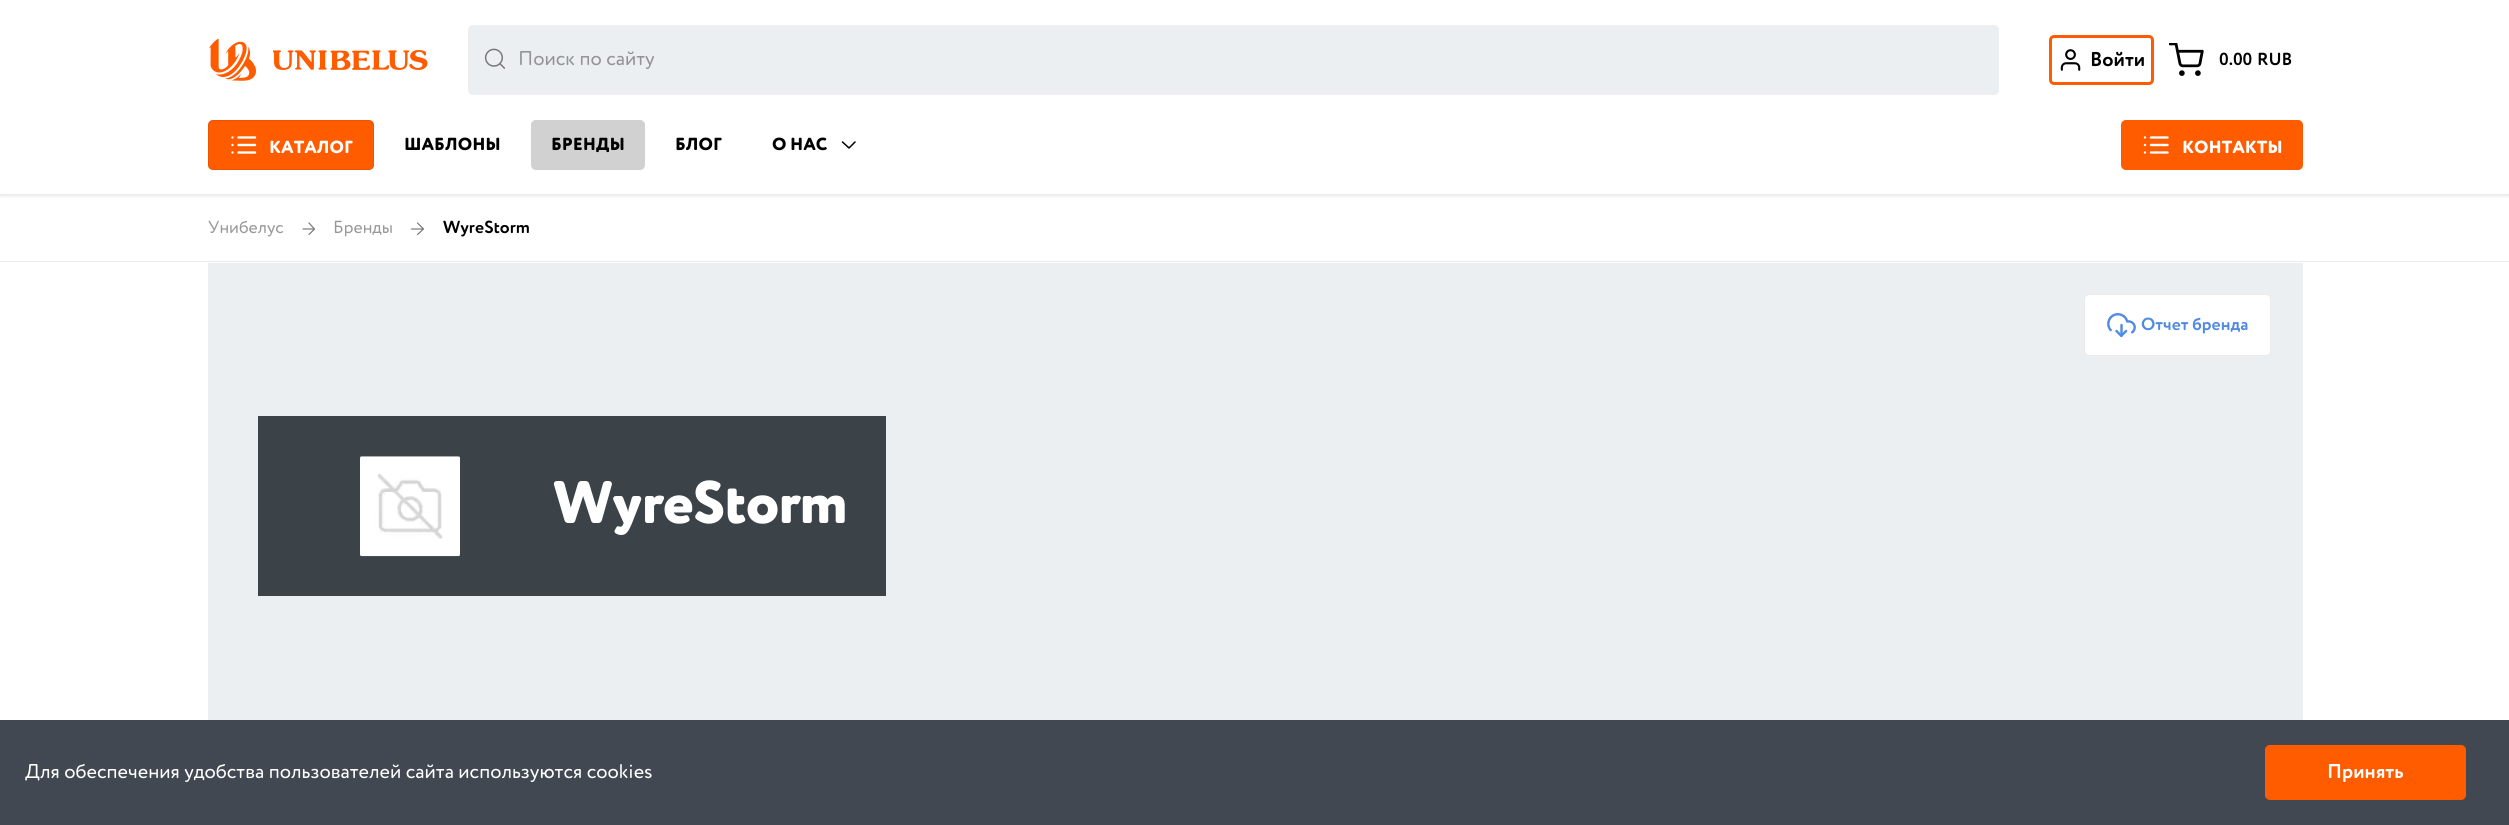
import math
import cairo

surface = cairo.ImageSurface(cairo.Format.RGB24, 2509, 825)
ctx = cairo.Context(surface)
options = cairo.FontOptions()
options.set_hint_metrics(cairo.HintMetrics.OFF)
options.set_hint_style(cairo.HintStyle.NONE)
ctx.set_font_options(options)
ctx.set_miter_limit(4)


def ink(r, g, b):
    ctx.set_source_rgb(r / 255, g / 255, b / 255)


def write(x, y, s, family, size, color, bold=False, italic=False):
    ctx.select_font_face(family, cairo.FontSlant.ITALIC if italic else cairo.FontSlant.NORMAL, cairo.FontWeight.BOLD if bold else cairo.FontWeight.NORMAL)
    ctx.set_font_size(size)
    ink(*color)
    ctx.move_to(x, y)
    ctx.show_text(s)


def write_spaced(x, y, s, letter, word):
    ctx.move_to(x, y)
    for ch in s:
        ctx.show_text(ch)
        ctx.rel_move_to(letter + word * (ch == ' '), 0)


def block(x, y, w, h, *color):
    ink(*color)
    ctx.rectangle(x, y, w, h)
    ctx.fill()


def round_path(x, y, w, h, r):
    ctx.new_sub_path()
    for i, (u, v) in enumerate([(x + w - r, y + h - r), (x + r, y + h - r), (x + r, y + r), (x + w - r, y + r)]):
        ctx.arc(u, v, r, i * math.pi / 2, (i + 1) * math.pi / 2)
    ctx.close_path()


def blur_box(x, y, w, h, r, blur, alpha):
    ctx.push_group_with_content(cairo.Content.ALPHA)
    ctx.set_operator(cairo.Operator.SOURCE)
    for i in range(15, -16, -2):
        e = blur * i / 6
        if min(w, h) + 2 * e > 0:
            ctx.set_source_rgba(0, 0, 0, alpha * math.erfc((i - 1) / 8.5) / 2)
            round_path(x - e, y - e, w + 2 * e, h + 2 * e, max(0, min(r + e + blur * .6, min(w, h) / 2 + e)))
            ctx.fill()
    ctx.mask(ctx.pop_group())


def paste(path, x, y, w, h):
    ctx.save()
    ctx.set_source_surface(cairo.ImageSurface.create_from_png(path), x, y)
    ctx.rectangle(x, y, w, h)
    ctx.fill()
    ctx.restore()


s1 = dict(family="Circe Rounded", size=20, color=(146, 148, 150))
s2 = dict(family="Circe Rounded", size=20, color=(0, 0, 0), bold=True)
s3 = dict(family="Circe Rounded", size=17.5, color=(0, 0, 0), bold=True)
s4 = dict(family="Circe Rounded ExtraBold", size=17.5, color=(255, 255, 255))
s5 = dict(family="Circe Rounded ExtraBold", size=17.5, color=(0, 0, 0))
s6 = dict(family="Circe Rounded", size=17.5, color=(153, 153, 153))
s7 = dict(family="Circe Rounded", size=17.5, color=(80, 138, 226), bold=True)
s8 = dict(family="Circe Rounded", size=20, color=(255, 255, 255))
s9 = dict(family="Circe Rounded", size=20, color=(255, 255, 255), bold=True)

ink(255, 255, 255)
ctx.paint()
ctx.save()
ctx.rectangle(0, 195, 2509, 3)
ctx.clip()
ink(0, 0, 0)
blur_box(0, 0, 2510, 195, 0, 2.5, 0.14)
ctx.restore()
block(0, 194, 2509, 1, 235, 235, 235)
paste("pic1.png", 209, 38, 47, 43)
paste("pic2.png", 273, 50, 155, 20)
ink(235, 239, 242)
round_path(468, 25, 1531, 70, 5)
ctx.fill()
paste("pic3.png", 484, 48, 22, 21)
write(518, 65, "Поиск по сайту", **s1)
round_path(2050.5, 36.5, 102, 47, 3.5)
ink(255, 92, 0)
ctx.set_line_width(3)
ctx.stroke()
paste("pic4.png", 2060, 49, 21, 22)
write(2090, 66, "Войти", **s2)
paste("pic5.png", 2169, 43, 35, 33)
write(2219, 65, "0.00", **s3)
write(2257, 65, "RUB", **s3)
ink(255, 92, 0)
round_path(208, 120, 166, 50, 5)
ctx.fill()
round_path(208.5, 120.5, 165, 49, 4.5)
ctx.set_source_rgba(0, 0, 0, 0.08)
ctx.set_line_width(1)
ctx.stroke()
ctx.new_path()
ctx.move_to(238.5, 137.5)
ctx.line_to(255, 137.5)
ctx.move_to(238.5, 145)
ctx.line_to(255, 145)
ctx.move_to(238.5, 152.5)
ctx.line_to(255, 152.5)
ctx.move_to(232.5, 137.5)
ctx.line_to(232.5, 137.5)
ctx.move_to(232.5, 145)
ctx.line_to(232.5, 145)
ctx.move_to(232.5, 152.5)
ctx.line_to(232.5, 152.5)
ink(255, 255, 255)
ctx.set_line_width(2.4)
ctx.set_line_cap(cairo.LineCap.ROUND)
ctx.set_line_join(cairo.LineJoin.ROUND)
ctx.stroke()
write(269, 153, "КАТАЛОГ", **s4)
write(404, 150, "ШАБЛОНЫ", **s5)
ink(209, 209, 209)
round_path(531, 120, 114, 50, 5)
ctx.fill()
write(551, 150, "БРЕНДЫ", **s5)
write(675, 150, "БЛОГ", **s5)
write(772, 150, "О НАС", **s5)
ctx.new_path()
ctx.move_to(842.5, 142)
ctx.line_to(849, 148)
ctx.line_to(855, 142)
ctx.set_line_width(1.5)
ctx.stroke()
ink(255, 92, 0)
round_path(2121, 120, 182, 50, 5)
ctx.fill()
ctx.new_path()
ctx.move_to(2151, 137.5)
ctx.line_to(2167.5, 137.5)
ctx.move_to(2151, 145)
ctx.line_to(2167.5, 145)
ctx.move_to(2151, 152.5)
ctx.line_to(2167.5, 152.5)
ctx.move_to(2145, 137.5)
ctx.line_to(2145, 137.5)
ctx.move_to(2145, 145)
ctx.line_to(2145, 145)
ctx.move_to(2145, 152.5)
ctx.line_to(2145, 152.5)
ink(255, 255, 255)
ctx.set_line_width(2.4)
ctx.stroke()
write(2182, 153, "КОНТАКТЫ", **s4)
block(0, 261, 2509, 1, 235, 235, 235)
write(208, 233, "Унибелус", **s6)
ctx.new_path()
ctx.move_to(303, 229)
ctx.line_to(314.5, 229)
ctx.move_to(309, 223)
ctx.line_to(314.5, 229)
ctx.line_to(309, 234.5)
ink(121, 121, 121)
ctx.set_line_width(1.2)
ctx.stroke()
write(333, 233, "Бренды", **s6)
ctx.new_path()
ctx.move_to(411.5, 229)
ctx.line_to(423.5, 229)
ctx.move_to(417.5, 223)
ctx.line_to(423.5, 229)
ctx.line_to(417.5, 234.5)
ink(121, 121, 121)
ctx.stroke()
write(443, 233, "WyreStorm", **s3)
block(208, 263, 2095, 457, 235, 239, 242)
ink(255, 255, 255)
round_path(2084, 294, 187, 62, 5)
ctx.fill()
round_path(2084.5, 294.5, 186, 61, 4.5)
ctx.set_source_rgba(0, 0, 0, 0.08)
ctx.set_line_width(1)
ctx.set_line_cap(cairo.LineCap.BUTT)
ctx.set_line_join(cairo.LineJoin.MITER)
ctx.stroke()
paste("pic6.png", 2107, 313, 29, 24)
write(2141, 330, "Отчет бренда", **s7)
block(258, 416, 628, 180, 59, 67, 73)
paste("pic7.png", 360, 456, 100, 101)
ctx.select_font_face("Circe Rounded ExtraBold")
ctx.set_font_size(60)
ink(255, 255, 255)
write_spaced(553, 523, "WyreStorm", -1, 0)
block(0, 720, 2509, 105, 66, 72, 81)
write(25, 778, "Для обеспечения удобства пользователей сайта используются cookies", **s8)
ink(255, 92, 0)
round_path(2265, 745, 201, 55, 5)
ctx.fill()
write(2327, 778, "Принять", **s9)
surface.write_to_png("screenshot.png")
